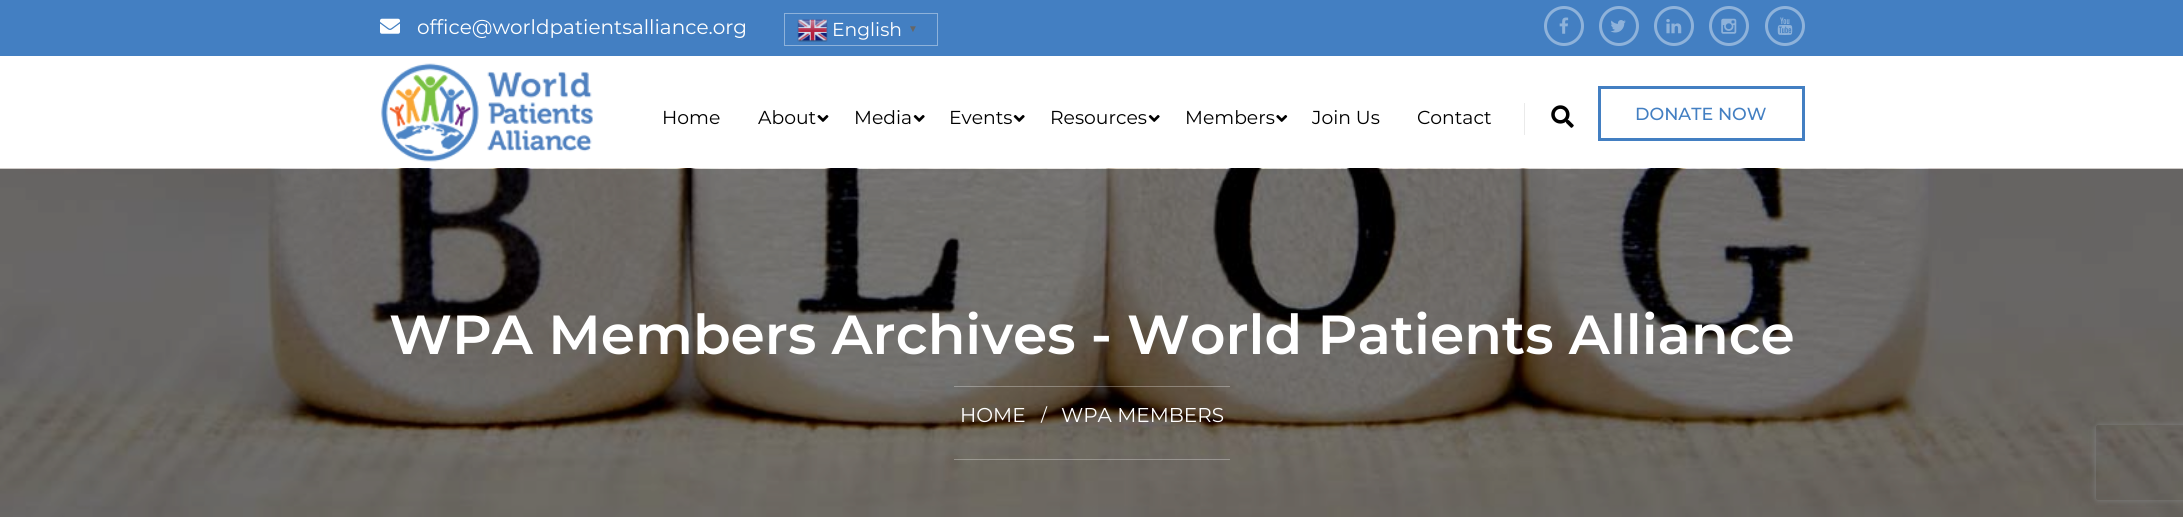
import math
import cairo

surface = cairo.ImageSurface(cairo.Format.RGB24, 2183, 517)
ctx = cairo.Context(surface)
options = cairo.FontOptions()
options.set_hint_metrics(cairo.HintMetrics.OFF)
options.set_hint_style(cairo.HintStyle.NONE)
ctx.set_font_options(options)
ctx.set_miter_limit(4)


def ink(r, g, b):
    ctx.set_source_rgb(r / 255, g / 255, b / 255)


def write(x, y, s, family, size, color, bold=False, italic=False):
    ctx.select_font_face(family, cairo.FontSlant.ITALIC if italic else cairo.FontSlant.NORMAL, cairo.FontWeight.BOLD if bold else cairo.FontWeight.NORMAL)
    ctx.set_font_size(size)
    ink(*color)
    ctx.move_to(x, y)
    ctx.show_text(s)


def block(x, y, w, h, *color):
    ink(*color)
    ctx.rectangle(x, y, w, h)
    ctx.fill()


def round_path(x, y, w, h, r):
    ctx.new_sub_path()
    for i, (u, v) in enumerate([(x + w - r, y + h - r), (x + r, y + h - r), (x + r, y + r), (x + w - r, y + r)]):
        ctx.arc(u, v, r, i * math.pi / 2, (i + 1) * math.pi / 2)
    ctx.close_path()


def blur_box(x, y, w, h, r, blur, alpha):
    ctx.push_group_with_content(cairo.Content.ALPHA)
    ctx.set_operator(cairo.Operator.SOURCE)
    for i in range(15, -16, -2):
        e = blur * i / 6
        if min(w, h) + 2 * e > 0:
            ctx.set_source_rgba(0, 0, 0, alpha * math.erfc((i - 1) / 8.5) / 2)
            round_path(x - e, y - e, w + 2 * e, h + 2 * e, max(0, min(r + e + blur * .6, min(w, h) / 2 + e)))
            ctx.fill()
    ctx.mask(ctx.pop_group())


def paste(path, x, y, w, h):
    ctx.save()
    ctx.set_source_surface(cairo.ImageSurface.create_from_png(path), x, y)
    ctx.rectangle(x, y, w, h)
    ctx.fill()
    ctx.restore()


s1 = dict(family="Montserrat", size=20, color=(255, 255, 255))
s2 = dict(family="Montserrat", size=18.75, color=(255, 255, 255))
s3 = dict(family="Liberation Serif", size=10, color=(102, 102, 102), bold=True)
s4 = dict(family="Montserrat", size=18.75, color=(0, 0, 0))
s5 = dict(family="Montserrat Medium", size=17.5, color=(67, 127, 194))
s6 = dict(family="Montserrat SemiBold", size=55, color=(255, 255, 255))
s7 = dict(family="Montserrat", size=17.5, color=(255, 255, 255))

ink(255, 255, 255)
ctx.paint()
block(0, 0, 2183, 56, 67, 127, 194)
paste("pic1.png", 380, 18, 20, 16)
write(417, 34, "office@worldpatientsalliance.org", **s1)
ctx.rectangle(784.5, 13.5, 153, 32)
ink(142, 178, 218)
ctx.set_line_width(1)
ctx.stroke()
paste("pic2.png", 797, 19, 31, 23)
write(832, 36, "English", **s2)
write(908, 32, "▼", **s3)
ctx.new_path()
ctx.arc(1564, 26, 18.5, 0, 2 * math.pi)
ink(142, 178, 218)
ctx.set_line_width(3)
ctx.stroke()
paste("pic3.png", 1559, 17, 10, 17)
ctx.arc(1619, 26, 18.5, 0, 2 * math.pi)
ctx.stroke()
paste("pic4.png", 1610, 20, 16, 13)
ctx.arc(1674, 26, 18.5, 0, 2 * math.pi)
ctx.stroke()
paste("pic5.png", 1666, 19, 16, 15)
ctx.arc(1729, 26, 18.5, 0, 2 * math.pi)
ctx.stroke()
paste("pic6.png", 1721, 18, 16, 16)
ctx.arc(1785, 26, 18.5, 0, 2 * math.pi)
ctx.stroke()
paste("pic7.png", 1777, 17, 16, 18)
paste("pic8.png", 381, 63, 212, 99)
write(662, 124, "Home", **s4)
write(758, 124, "About", **s4)
paste("pic9.png", 817, 115, 12, 7)
write(854, 124, "Media", **s4)
paste("pic10.png", 913, 115, 12, 7)
write(949, 124, "Events", **s4)
paste("pic10.png", 1013, 115, 12, 7)
write(1050, 124, "Resources", **s4)
paste("pic10.png", 1148, 115, 12, 7)
write(1185, 124, "Members", **s4)
paste("pic11.png", 1276, 115, 12, 7)
write(1312, 124, "Join Us", **s4)
write(1417, 124, "Contact", **s4)
block(1524, 103, 1, 32, 234, 234, 234)
paste("pic12.png", 1551, 105, 23, 23)
ctx.rectangle(1599.5, 87.5, 204, 52)
ink(67, 127, 194)
ctx.stroke()
write(1635, 120, "DONATE NOW", **s5)
paste("pic13.png", 0, 168, 2183, 349)
write(389, 354, "WPA Members Archives - World Patients Alliance", **s6)
ctx.set_source_rgba(1, 1, 1, 0.3)
ctx.rectangle(954, 386, 276, 1)
ctx.fill()
ctx.rectangle(954, 459, 276, 1)
ctx.fill()
write(960, 422, "HOME", **s1)
write(1041, 421, "/", **s7)
write(1061, 422, "WPA MEMBERS", **s1)
ctx.save()
ctx.set_fill_rule(cairo.FillRule.EVEN_ODD)
ctx.new_path()
ctx.move_to(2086, 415)
ctx.line_to(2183, 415)
ctx.line_to(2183, 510)
ctx.line_to(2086, 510)
ctx.close_path()
ctx.move_to(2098.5, 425)
ctx.line_to(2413.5, 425)
ctx.curve_to(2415, 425, 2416, 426, 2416, 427.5)
ctx.line_to(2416, 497.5)
ctx.curve_to(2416, 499, 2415, 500, 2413.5, 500)
ctx.line_to(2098.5, 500)
ctx.curve_to(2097, 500, 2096, 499, 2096, 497.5)
ctx.line_to(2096, 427.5)
ctx.curve_to(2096, 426, 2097, 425, 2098.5, 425)
ctx.close_path()
ctx.clip()
ink(128, 128, 128)
blur_box(2096, 425, 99, 75, 2.5, 3, 1)
ctx.restore()
surface.write_to_png("screenshot.png")
